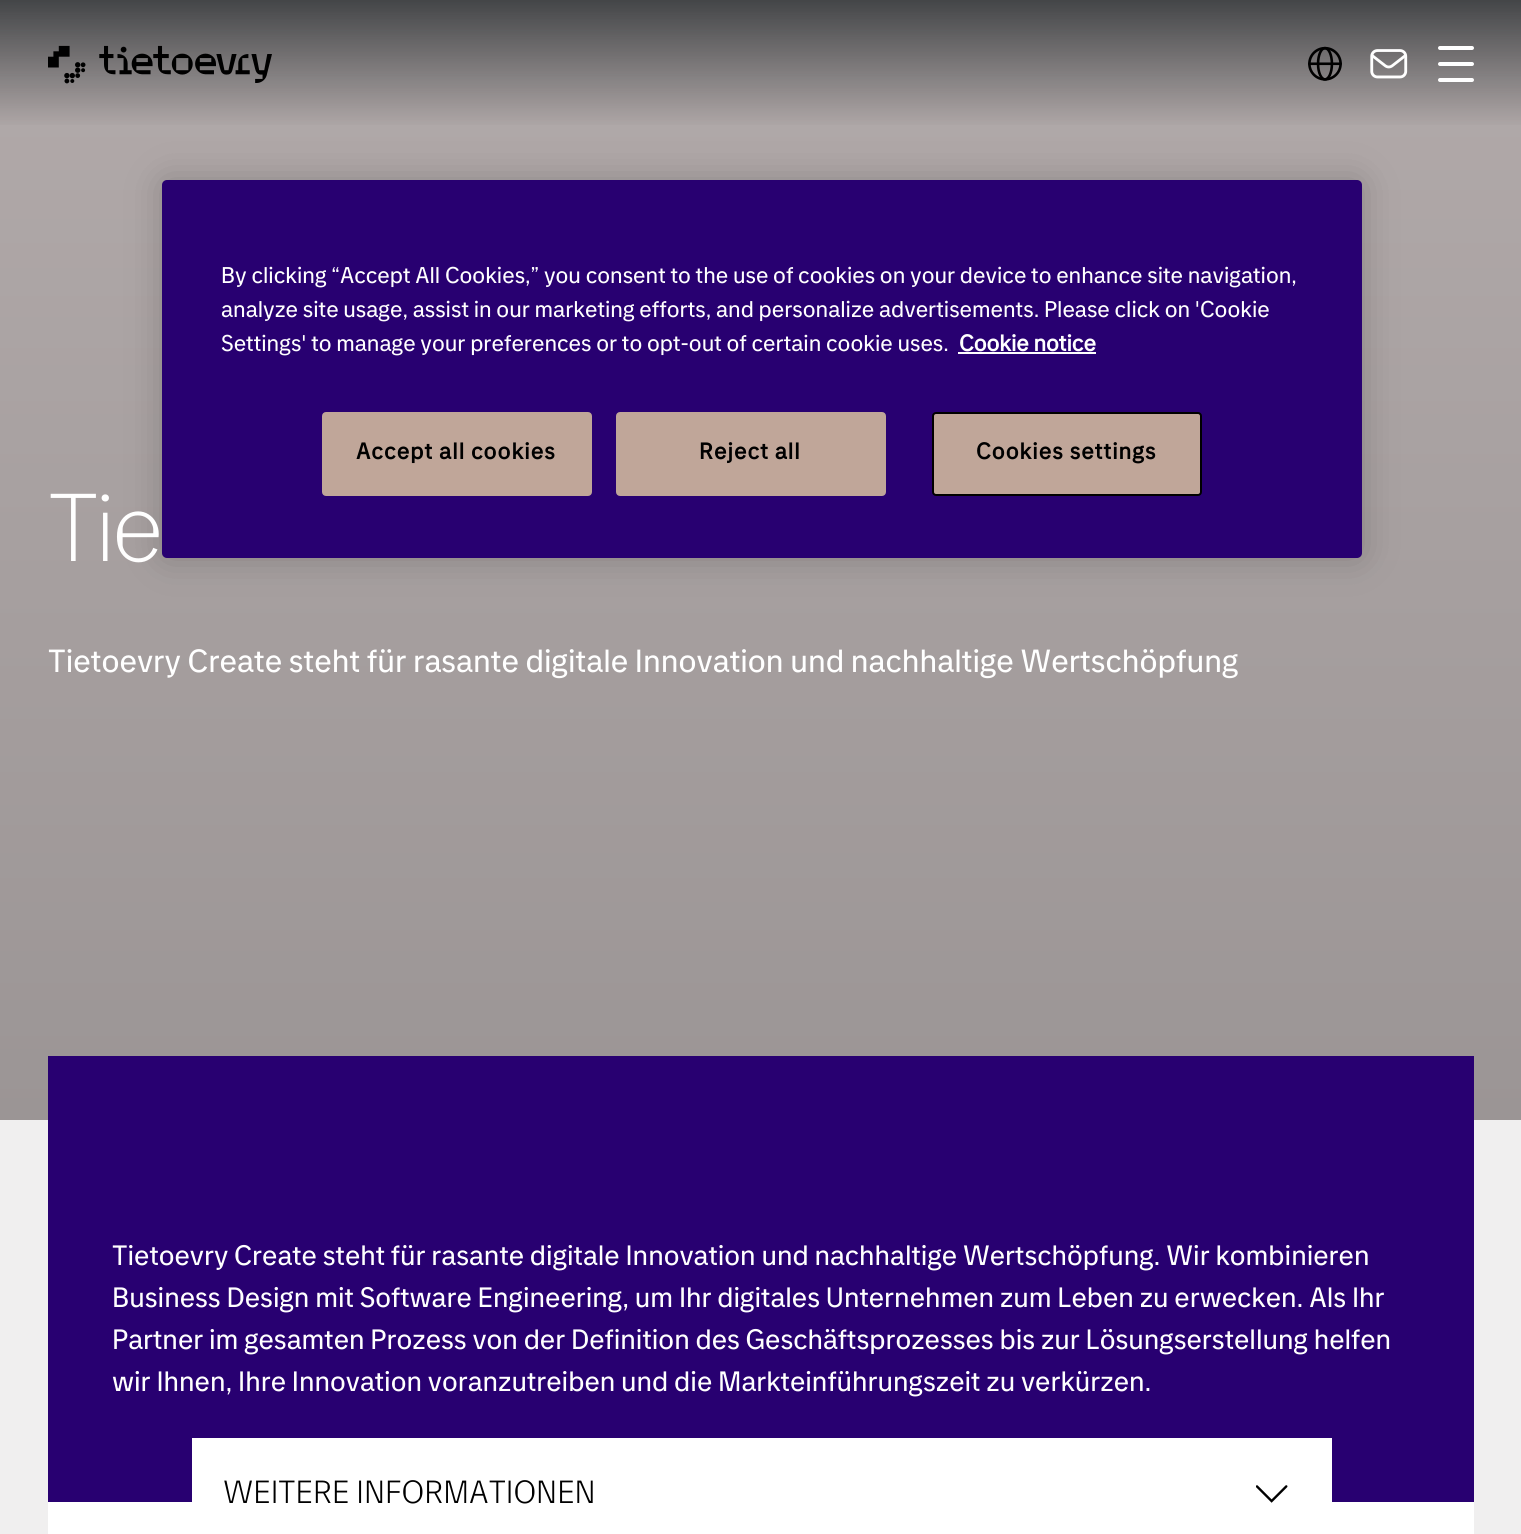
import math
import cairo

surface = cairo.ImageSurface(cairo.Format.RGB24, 1521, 1534)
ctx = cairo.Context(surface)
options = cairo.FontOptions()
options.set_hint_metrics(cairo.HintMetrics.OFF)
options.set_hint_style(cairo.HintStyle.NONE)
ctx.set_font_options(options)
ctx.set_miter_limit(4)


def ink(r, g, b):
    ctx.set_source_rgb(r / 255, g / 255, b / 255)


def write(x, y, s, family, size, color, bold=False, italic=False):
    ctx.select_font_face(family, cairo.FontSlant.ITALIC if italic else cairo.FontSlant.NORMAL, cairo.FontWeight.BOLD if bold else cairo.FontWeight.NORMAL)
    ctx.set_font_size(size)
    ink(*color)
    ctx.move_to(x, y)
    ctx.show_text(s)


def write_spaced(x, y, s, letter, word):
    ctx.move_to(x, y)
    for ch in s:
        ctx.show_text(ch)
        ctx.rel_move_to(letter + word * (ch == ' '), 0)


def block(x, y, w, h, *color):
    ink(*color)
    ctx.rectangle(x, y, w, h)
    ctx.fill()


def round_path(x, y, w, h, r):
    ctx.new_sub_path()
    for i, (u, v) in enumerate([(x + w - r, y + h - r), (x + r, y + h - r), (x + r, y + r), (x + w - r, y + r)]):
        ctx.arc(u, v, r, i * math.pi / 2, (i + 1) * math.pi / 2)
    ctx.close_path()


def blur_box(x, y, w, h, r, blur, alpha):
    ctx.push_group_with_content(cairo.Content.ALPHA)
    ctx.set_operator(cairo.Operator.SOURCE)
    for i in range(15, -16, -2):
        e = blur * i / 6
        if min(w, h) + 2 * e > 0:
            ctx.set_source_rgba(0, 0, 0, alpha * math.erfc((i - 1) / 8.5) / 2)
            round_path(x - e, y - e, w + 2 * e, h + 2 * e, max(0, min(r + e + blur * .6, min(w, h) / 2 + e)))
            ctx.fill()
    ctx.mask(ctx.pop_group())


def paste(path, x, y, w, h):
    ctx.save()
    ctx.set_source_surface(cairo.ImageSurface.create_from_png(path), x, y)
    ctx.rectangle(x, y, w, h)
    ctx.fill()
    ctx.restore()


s1 = dict(family="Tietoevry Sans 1", size=22.75, color=(255, 255, 255))
s2 = dict(family="Tietoevry Sans 1", size=22.75, color=(255, 255, 255), bold=True)
s3 = dict(family="Tietoevry Sans 1", size=32, color=(255, 255, 255))
s4 = dict(family="Tietoevry Sans 1", size=28, color=(255, 255, 255))
s5 = dict(family="Tietoevry Sans 1 Light", size=32, color=(0, 0, 0))

ink(240, 239, 239)
ctx.paint()
gradient = cairo.LinearGradient(761, 0, 761, 1120)
gradient.add_color_stop_rgba(0, 0.698, 0.667, 0.667, 1)
gradient.add_color_stop_rgba(1, 0.608, 0.584, 0.584, 1)
ctx.set_source(gradient)
ctx.rectangle(0, 0, 1521, 1120)
ctx.fill()
gradient = cairo.LinearGradient(761, 0, 761, 128)
gradient.add_color_stop_rgba(0, 0.157, 0.173, 0.184, 0.8)
gradient.add_color_stop_rgba(0, 0.157, 0.173, 0.184, 0.8)
gradient.add_color_stop_rgba(1, 0.157, 0.173, 0.184, 0)
ctx.set_source(gradient)
ctx.rectangle(0, 0, 1521, 125)
ctx.fill()
paste("pic1.png", 48, 45, 224, 39)
paste("pic2.png", 1308, 46, 34, 35)
paste("pic3.png", 1370, 49, 38, 30)
ink(255, 255, 255)
round_path(1438, 78, 36, 4, 2)
ctx.fill()
round_path(1438, 46, 36, 4, 2)
ctx.fill()
round_path(1438, 62, 36, 4, 2)
ctx.fill()
ink(0, 0, 0)
blur_box(162, 180, 1200, 378, 5, 18, 0.2)
ink(40, 0, 113)
round_path(162, 180, 1200, 378, 5)
ctx.fill()
write(221, 283, "By clicking “Accept All Cookies,” you consent to the use of cookies on your device to enhance site navigation,", **s1)
write(221, 317, "analyze site usage, assist in our marketing efforts, and personalize advertisements. Please click on 'Cookie", **s1)
write(221, 351, "Settings' to manage your preferences or to opt-out of certain cookie uses.", **s1)
write(959, 351, "Cookie notice", **s2)
block(958, 352, 138, 2, 255, 255, 255)
ink(192, 166, 153)
round_path(323, 413, 268, 82, 3)
ctx.fill_preserve()
ctx.stroke()
ink(0, 0, 0)
write_spaced(356, 459, "Accept all cookies", 1.1, 0)
ink(192, 166, 153)
round_path(617, 413, 268, 82, 3)
ctx.fill_preserve()
ctx.stroke()
ink(0, 0, 0)
write_spaced(699, 459, "Reject all", 1.1, 0)
ink(192, 166, 153)
round_path(933, 413, 268, 82, 3)
ctx.fill_preserve()
ink(0, 0, 0)
ctx.stroke()
write_spaced(976, 459, "Cookies settings", 1.1, 0)
ctx.select_font_face("Tietoevry Sans 1 Thin")
ctx.set_font_size(96)
ink(255, 255, 255)
write_spaced(48, 561, "Tie", -3.5, 0)
write(48, 672, "Tietoevry Create steht für rasante digitale Innovation und nachhaltige Wertschöpfung", **s3)
block(48, 1502, 1426, 32, 255, 255, 255)
block(48, 1056, 1426, 446, 40, 0, 113)
write(112, 1265, "Tietoevry Create steht für rasante digitale Innovation und nachhaltige Wertschöpfung. Wir kombinieren", **s4)
write(112, 1307, "Business Design mit Software Engineering, um Ihr digitales Unternehmen zum Leben zu erwecken. Als Ihr", **s4)
write(112, 1349, "Partner im gesamten Prozess von der Definition des Geschäftsprozesses bis zur Lösungserstellung helfen", **s4)
write(112, 1391, "wir Ihnen, Ihre Innovation voranzutreiben und die Markteinführungszeit zu verkürzen.", **s4)
block(192, 1438, 1140, 64, 255, 255, 255)
write(223, 1503, "WEITERE INFORMATIONEN", **s5)
paste("pic4.png", 1256, 1485, 32, 18)
surface.write_to_png("screenshot.png")
